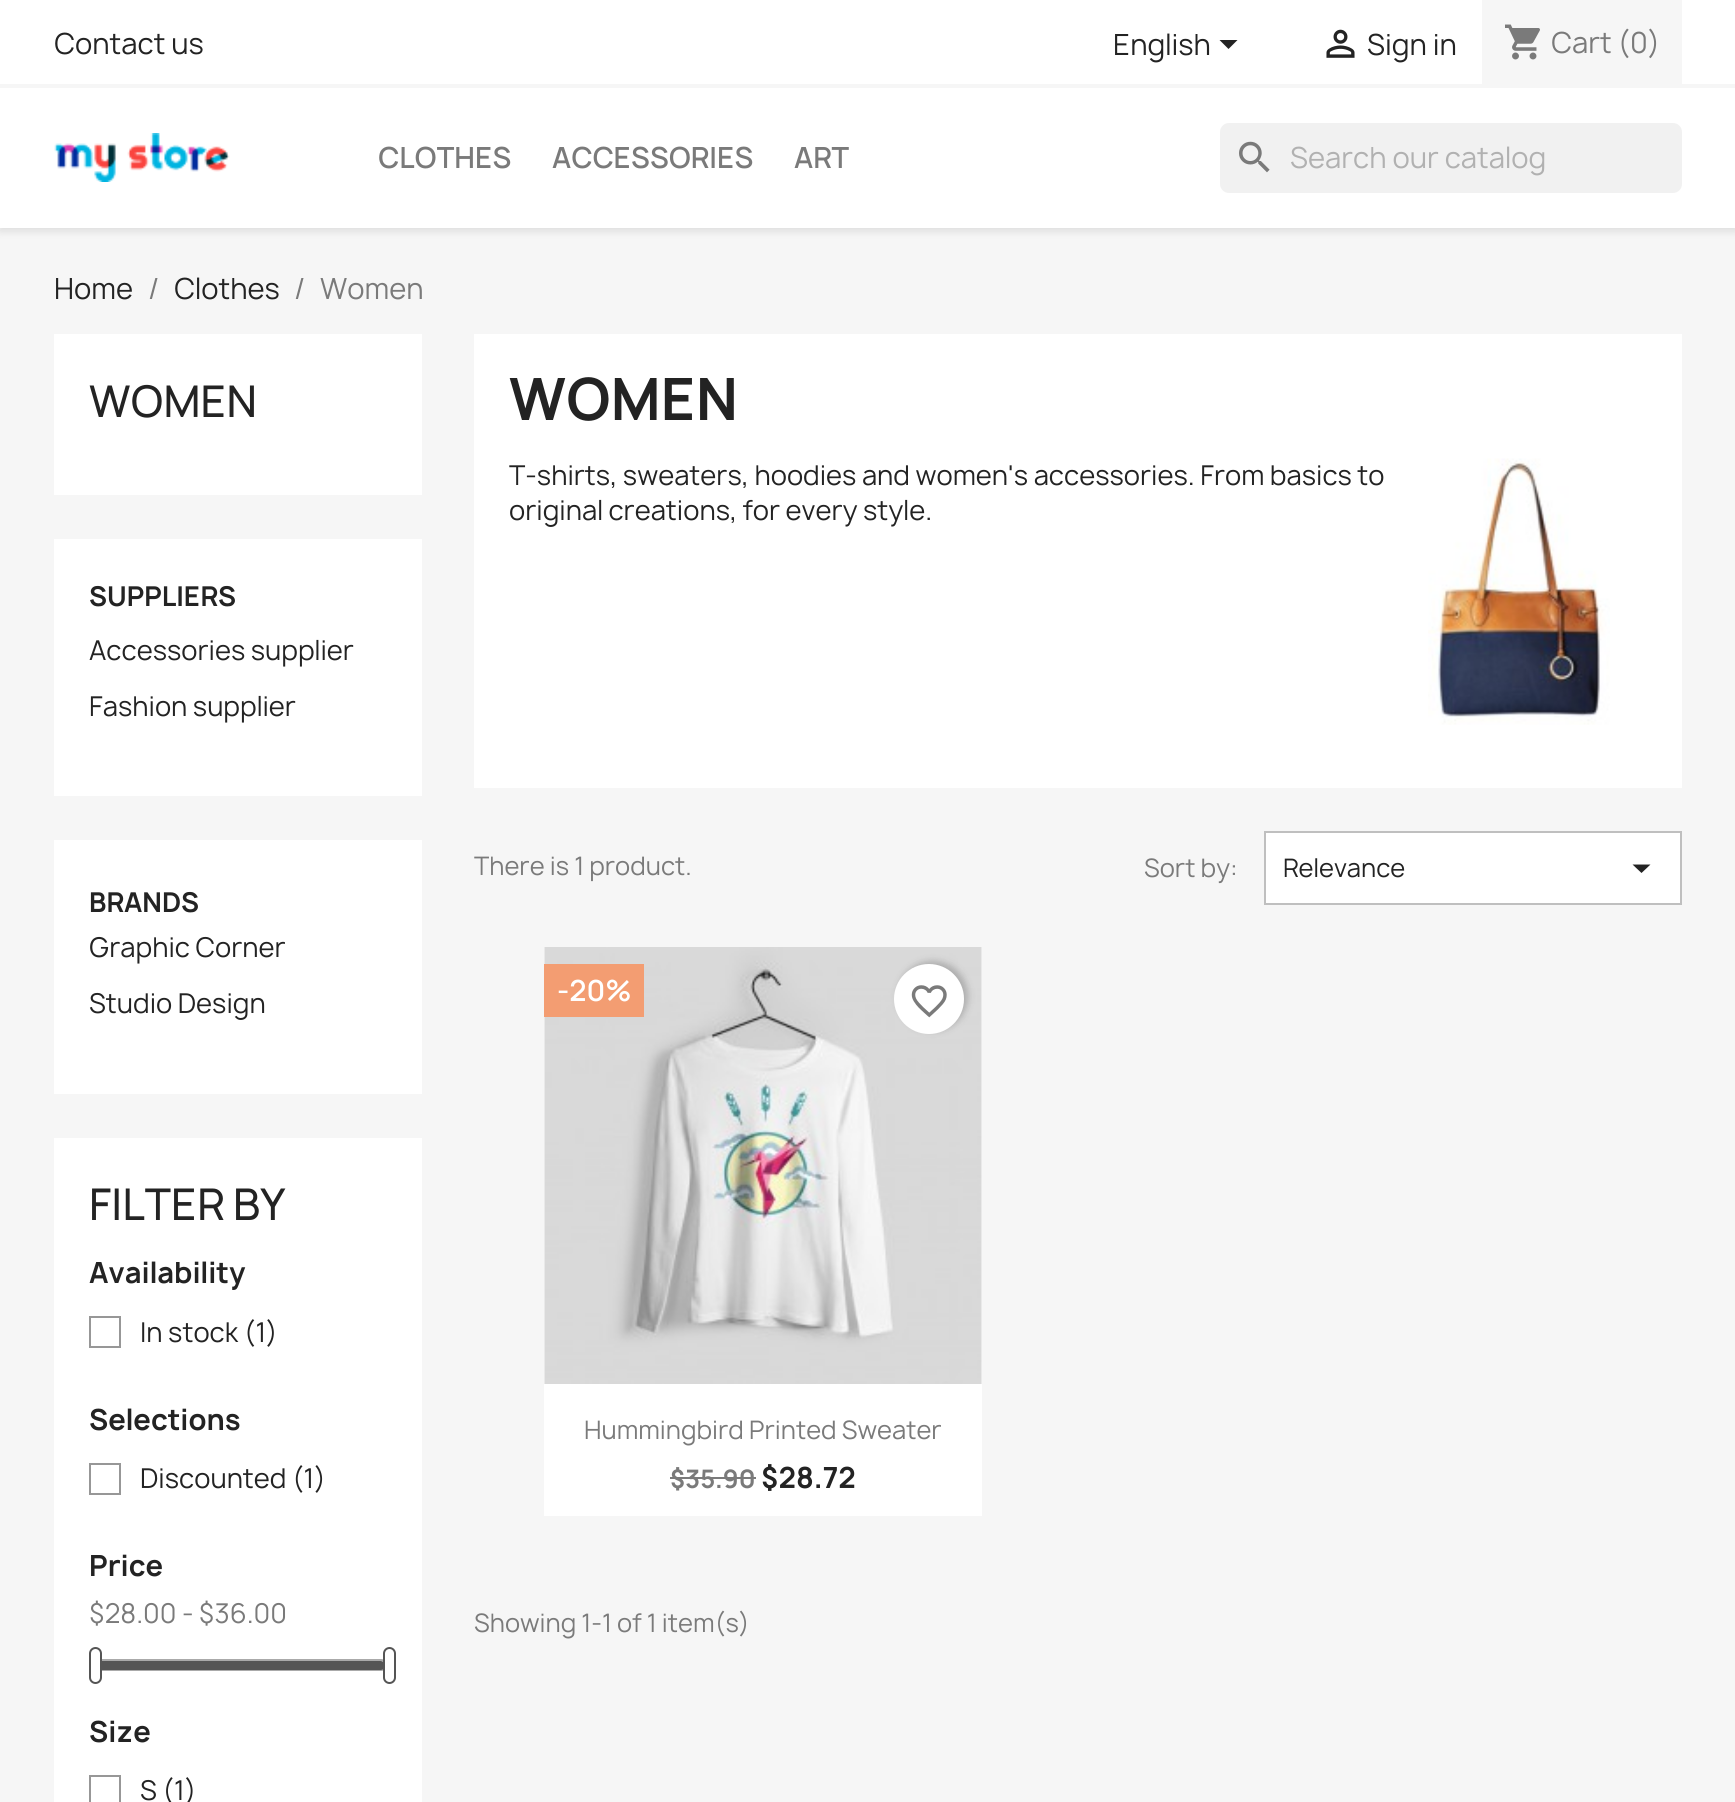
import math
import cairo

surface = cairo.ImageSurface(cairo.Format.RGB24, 1735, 1802)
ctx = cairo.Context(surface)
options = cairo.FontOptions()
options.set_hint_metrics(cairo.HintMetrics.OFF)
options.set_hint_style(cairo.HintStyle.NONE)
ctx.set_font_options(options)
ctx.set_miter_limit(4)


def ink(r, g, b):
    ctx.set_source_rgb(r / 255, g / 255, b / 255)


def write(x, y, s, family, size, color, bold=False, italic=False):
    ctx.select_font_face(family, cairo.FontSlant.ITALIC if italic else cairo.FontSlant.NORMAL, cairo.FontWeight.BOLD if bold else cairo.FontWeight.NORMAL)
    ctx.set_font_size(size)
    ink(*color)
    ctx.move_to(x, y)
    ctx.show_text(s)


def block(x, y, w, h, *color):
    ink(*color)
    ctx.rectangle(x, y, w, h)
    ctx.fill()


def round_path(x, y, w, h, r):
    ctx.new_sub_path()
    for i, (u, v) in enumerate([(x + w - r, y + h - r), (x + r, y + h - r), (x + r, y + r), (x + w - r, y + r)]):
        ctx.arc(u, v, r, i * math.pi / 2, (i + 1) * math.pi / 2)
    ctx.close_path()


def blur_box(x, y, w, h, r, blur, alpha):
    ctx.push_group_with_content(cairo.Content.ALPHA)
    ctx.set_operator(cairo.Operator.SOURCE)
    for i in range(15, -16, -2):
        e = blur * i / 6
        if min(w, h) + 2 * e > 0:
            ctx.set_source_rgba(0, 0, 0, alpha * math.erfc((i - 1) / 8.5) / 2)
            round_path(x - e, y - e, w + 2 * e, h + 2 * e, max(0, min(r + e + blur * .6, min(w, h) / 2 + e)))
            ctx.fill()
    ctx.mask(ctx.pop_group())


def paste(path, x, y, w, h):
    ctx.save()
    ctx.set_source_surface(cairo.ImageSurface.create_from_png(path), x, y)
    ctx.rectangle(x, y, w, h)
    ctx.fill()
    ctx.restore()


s1 = dict(family="Manrope", size=28, color=(35, 35, 35))
s2 = dict(family="Manrope", size=28, color=(122, 122, 122))
s3 = dict(family="Manrope SemiBold", size=28, color=(122, 122, 122))
s4 = dict(family="Manrope", size=28, color=(177, 177, 177))
s5 = dict(family="Manrope Medium", size=42, color=(35, 35, 35))
s6 = dict(family="Manrope", size=26.25, color=(35, 35, 35), bold=True)
s7 = dict(family="Manrope", size=26.25, color=(35, 35, 35))
s8 = dict(family="Manrope", size=28, color=(35, 35, 35), bold=True)
s9 = dict(family="Manrope", size=26.25, color=(122, 122, 122))
s10 = dict(family="Manrope", size=56, color=(35, 35, 35), bold=True)
s11 = dict(family="Manrope", size=24.5, color=(122, 122, 122))
s12 = dict(family="Manrope", size=24.5, color=(35, 35, 35))
s13 = dict(family="Manrope SemiBold", size=28, color=(255, 255, 255))
s14 = dict(family="Manrope", size=24.5, color=(122, 122, 122), bold=True)

ink(246, 246, 246)
ctx.paint()
ink(0, 0, 0)
blur_box(0, 4, 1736, 227, 0, 4.5, 0.11)
block(0, 0, 1735, 228, 255, 255, 255)
block(0, 84, 1735, 4, 246, 246, 246)
write(54, 54, "Contact us", **s1)
write(1113, 55, "English", **s1)
ctx.new_path()
ctx.move_to(1219.5, 40)
ctx.line_to(1237.5, 40)
ctx.line_to(1228.5, 49)
ctx.close_path()
ctx.fill()
paste("pic1.png", 1326, 29, 29, 29)
write(1367, 55, "Sign in", **s1)
block(1482, 0, 200, 84, 246, 246, 246)
paste("pic2.png", 1505, 24, 35, 36)
write(1551, 53, "Cart (0)", **s2)
paste("pic3.png", 54, 133, 176, 49)
write(378, 168, "CLOTHES", **s3)
write(552, 168, "ACCESSORIES", **s3)
write(794, 168, "ART", **s3)
ink(241, 241, 241)
round_path(1220, 123, 462, 70, 9)
ctx.fill()
paste("pic4.png", 1239, 141, 31, 32)
write(1290, 168, "Search our catalog", **s4)
write(54, 299, "Home", **s1)
write(148, 299, "/", **s2)
write(174, 299, "Clothes", **s1)
write(294, 299, "/", **s2)
write(320, 299, "Women", **s2)
block(54, 334, 368, 161, 255, 255, 255)
write(89, 417, "WOMEN", **s5)
block(54, 539, 368, 257, 255, 255, 255)
write(89, 606, "SUPPLIERS", **s6)
write(89, 660, "Accessories supplier", **s7)
write(89, 716, "Fashion supplier", **s7)
block(54, 840, 368, 254, 255, 255, 255)
write(89, 912, "BRANDS", **s6)
write(89, 957, "Graphic Corner", **s7)
write(89, 1013, "Studio Design", **s7)
block(54, 1138, 368, 664, 255, 255, 255)
write(89, 1220, "FILTER BY", **s5)
write(89, 1283, "Availability", **s8)
ctx.rectangle(90, 1317, 30, 30)
ink(151, 151, 151)
ctx.stroke()
write(140, 1342, "In stock (1)", **s7)
write(89, 1430, "Selections", **s8)
ctx.rectangle(90, 1464, 30, 30)
ink(151, 151, 151)
ctx.stroke()
write(140, 1488, "Discounted (1)", **s7)
write(89, 1576, "Price", **s8)
write(89, 1623, "$28.00 - $36.00", **s9)
round_path(90, 1660, 296, 10, 5)
ink(170, 170, 170)
ctx.stroke()
ink(85, 85, 85)
round_path(91, 1661, 294, 9, 4.5)
ctx.fill()
ink(255, 255, 255)
round_path(90, 1648, 11, 35, 5.5)
ctx.fill_preserve()
ink(85, 85, 85)
ctx.stroke()
ink(255, 255, 255)
round_path(384, 1648, 11, 35, 5.5)
ctx.fill_preserve()
ink(85, 85, 85)
ctx.stroke()
write(89, 1742, "Size", **s8)
ctx.rectangle(90, 1776, 30, 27)
ink(151, 151, 151)
ctx.stroke()
write(140, 1800, "S (1)", **s7)
block(474, 334, 1208, 454, 255, 255, 255)
write(509, 420, "WOMEN", **s10)
write(509, 485, "T-shirts, sweaters, hoodies and women's accessories. From basics to", **s7)
write(509, 520, "original creations, for every style.", **s7)
paste("pic5.png", 1428, 458, 182, 267)
write(474, 875, "There is 1 product.", **s11)
write(1144, 877, "Sort by:", **s11)
ink(255, 255, 255)
ctx.rectangle(1265, 832, 416, 72)
ctx.fill_preserve()
ink(191, 191, 191)
ctx.stroke()
write(1283, 877, "Relevance", **s12)
ctx.new_path()
ctx.move_to(1632.5, 864.5)
ctx.line_to(1650.5, 864.5)
ctx.line_to(1641.5, 873)
ctx.close_path()
ctx.fill()
block(544, 947, 438, 569, 255, 255, 255)
paste("pic6.png", 544, 947, 438, 437)
block(544, 964, 100, 53, 243, 157, 114)
write(557, 1001, "-20%", **s13)
ink(0, 0, 0)
blur_box(898, 961, 70, 70, 35, 3.5, 0.2)
ink(255, 255, 255)
ctx.arc(929, 999, 35, 0, 2 * math.pi)
ctx.fill()
paste("pic7.png", 911, 985, 36, 33)
write(584, 1439, "Hummingbird Printed Sweater", **s11)
write(670, 1488, "$35.90", **s14)
block(670, 1477, 86, 2, 122, 122, 122)
write(761, 1488, "$28.72", **s8)
write(474, 1632, "Showing 1-1 of 1 item(s)", **s11)
surface.write_to_png("screenshot.png")
